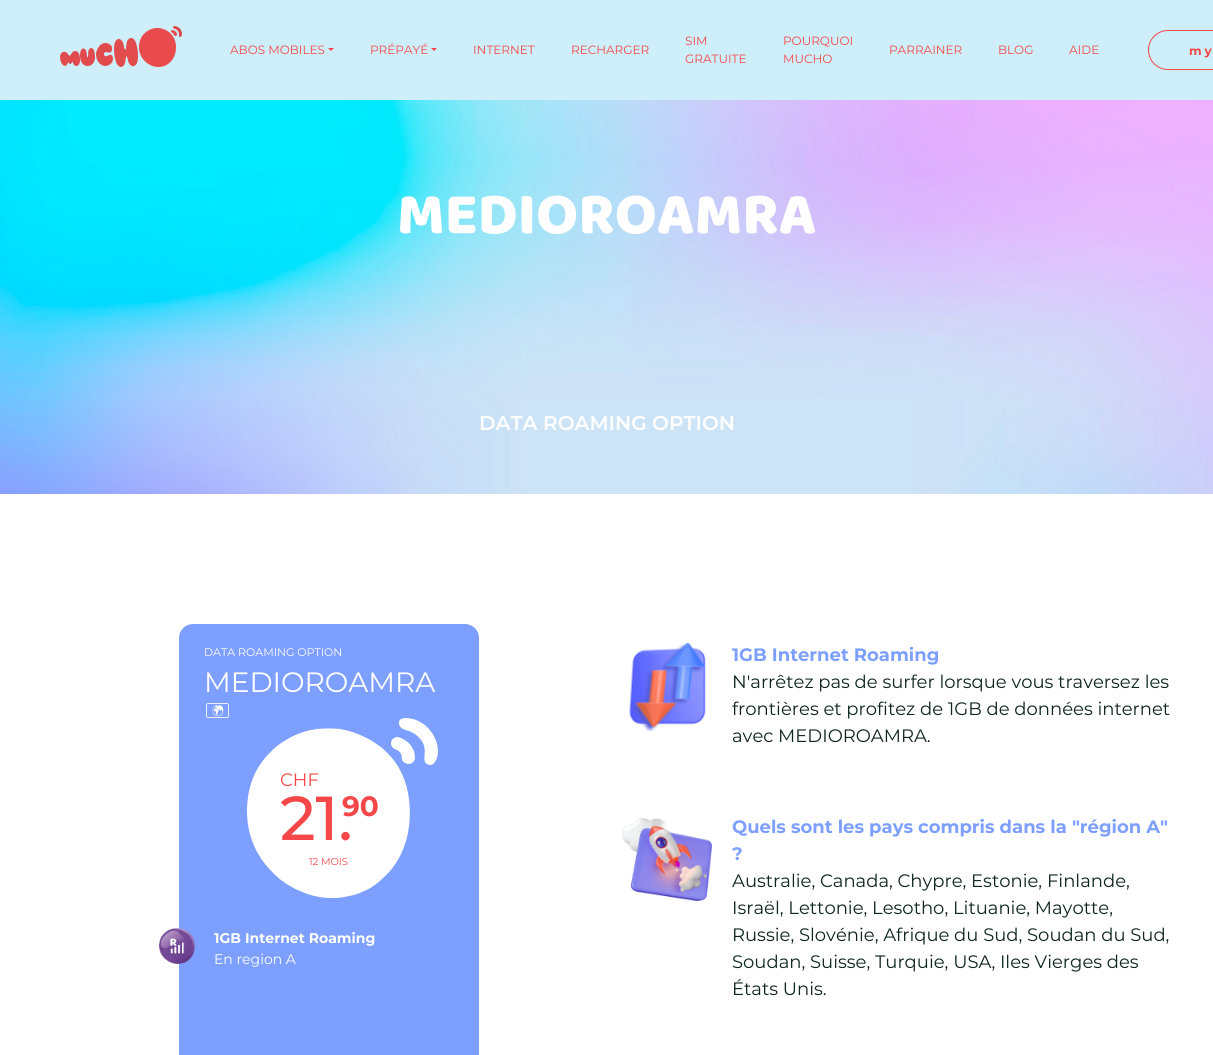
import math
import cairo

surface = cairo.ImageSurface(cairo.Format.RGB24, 1213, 1055)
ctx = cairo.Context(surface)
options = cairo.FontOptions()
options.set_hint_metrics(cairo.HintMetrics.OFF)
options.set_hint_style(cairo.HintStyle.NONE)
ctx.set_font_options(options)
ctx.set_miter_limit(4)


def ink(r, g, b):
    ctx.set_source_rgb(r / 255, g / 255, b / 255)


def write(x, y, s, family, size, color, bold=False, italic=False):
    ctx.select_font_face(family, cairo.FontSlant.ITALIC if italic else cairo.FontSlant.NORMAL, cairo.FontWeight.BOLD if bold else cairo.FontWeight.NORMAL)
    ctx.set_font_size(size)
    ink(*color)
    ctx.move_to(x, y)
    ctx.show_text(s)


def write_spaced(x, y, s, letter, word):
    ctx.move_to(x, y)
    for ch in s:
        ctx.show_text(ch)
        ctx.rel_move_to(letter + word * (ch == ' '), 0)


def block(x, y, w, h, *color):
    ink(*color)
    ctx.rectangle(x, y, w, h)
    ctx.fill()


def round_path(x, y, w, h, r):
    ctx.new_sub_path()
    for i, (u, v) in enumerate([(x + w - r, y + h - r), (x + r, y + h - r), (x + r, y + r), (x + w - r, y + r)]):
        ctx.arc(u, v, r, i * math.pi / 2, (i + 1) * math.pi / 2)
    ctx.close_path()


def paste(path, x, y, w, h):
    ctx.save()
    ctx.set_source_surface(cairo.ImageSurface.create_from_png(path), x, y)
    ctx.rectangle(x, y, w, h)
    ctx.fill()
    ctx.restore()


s1 = dict(family="Montserrat", size=12, color=(245, 71, 72))
s2 = dict(family="Baloo 2 ExtraBold", size=60, color=(255, 255, 255))
s3 = dict(family="Montserrat SemiBold", size=20, color=(255, 255, 255))
s4 = dict(family="Montserrat", size=11, color=(255, 255, 255))
s5 = dict(family="Montserrat", size=28, color=(255, 255, 255))
s6 = dict(family="Montserrat", size=18, color=(245, 71, 72))
s7 = dict(family="Montserrat Medium", size=62, color=(245, 71, 72))
s8 = dict(family="Montserrat", size=28, color=(245, 71, 72), bold=True)
s9 = dict(family="Montserrat", size=10, color=(245, 71, 72))
s10 = dict(family="Montserrat", size=14, color=(255, 255, 255), bold=True)
s11 = dict(family="Montserrat", size=14, color=(255, 255, 255))
s12 = dict(family="Montserrat", size=18, color=(125, 159, 255), bold=True)
s13 = dict(family="Montserrat", size=18, color=(15, 37, 34))

ink(255, 255, 255)
ctx.paint()
block(0, 0, 1213, 100, 206, 239, 249)
paste("pic1.png", 60, 26, 122, 41)
write(230, 54, "ABOS MOBILES", **s1)
ctx.new_path()
ctx.move_to(328, 48)
ctx.line_to(334, 48)
ctx.line_to(331, 51)
ctx.close_path()
ctx.fill()
write(370, 54, "PRÉPAYÉ", **s1)
ctx.new_path()
ctx.move_to(431, 48)
ctx.line_to(437, 48)
ctx.line_to(434, 51)
ctx.close_path()
ctx.fill()
write(473, 54, "INTERNET", **s1)
write(571, 54, "RECHARGER", **s1)
write(685, 45, "SIM", **s1)
write(685, 63, "GRATUITE", **s1)
write(783, 45, "POURQUOI", **s1)
write(783, 63, "MUCHO", **s1)
write(889, 54, "PARRAINER", **s1)
write(998, 54, "BLOG", **s1)
write(1069, 54, "AIDE", **s1)
round_path(1148.5, 30.5, 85, 39, 19.5)
ctx.set_line_width(1)
ctx.stroke()
ctx.select_font_face("Montserrat", cairo.FontSlant.NORMAL, cairo.FontWeight.BOLD)
write_spaced(1189, 55, "my", 3, 0)
paste("pic2.png", 0, 100, 1213, 394)
write(397, 233, "MEDIOROAMRA", **s2)
write(479, 430, "DATA ROAMING OPTION", **s3)
ink(125, 159, 255)
round_path(179, 624, 300, 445, 14)
ctx.fill()
write(204, 656, "DATA ROAMING OPTION", **s4)
write(204, 692, "MEDIOROAMRA", **s5)
paste("pic3.png", 206, 703, 23, 15)
paste("pic4.png", 247, 718, 191, 180)
write(280, 786, "CHF", **s6)
write(280, 840, "21.", **s7)
write(342, 816, "90", **s8)
write(309, 865, "12 MOIS", **s9)
paste("pic5.png", 159, 928, 36, 36)
write(214, 943, "1GB Internet Roaming", **s10)
write(214, 964, "En region A", **s11)
paste("pic6.png", 629, 642, 77, 90)
write(732, 661, "1GB Internet Roaming", **s12)
write(732, 688, "N'arrêtez pas de surfer lorsque vous traversez les", **s13)
write(732, 715, "frontières et profitez de 1GB de données internet", **s13)
write(732, 742, "avec MEDIOROAMRA.", **s13)
paste("pic7.png", 622, 818, 90, 83)
write(732, 833, "Quels sont les pays compris dans la \"région A\"", **s12)
write(732, 860, "?", **s12)
write(732, 887, "Australie, Canada, Chypre, Estonie, Finlande,", **s13)
write(732, 914, "Israël, Lettonie, Lesotho, Lituanie, Mayotte,", **s13)
write(732, 941, "Russie, Slovénie, Afrique du Sud, Soudan du Sud,", **s13)
write(732, 968, "Soudan, Suisse, Turquie, USA, Iles Vierges des", **s13)
write(732, 995, "États Unis.", **s13)
surface.write_to_png("screenshot.png")
